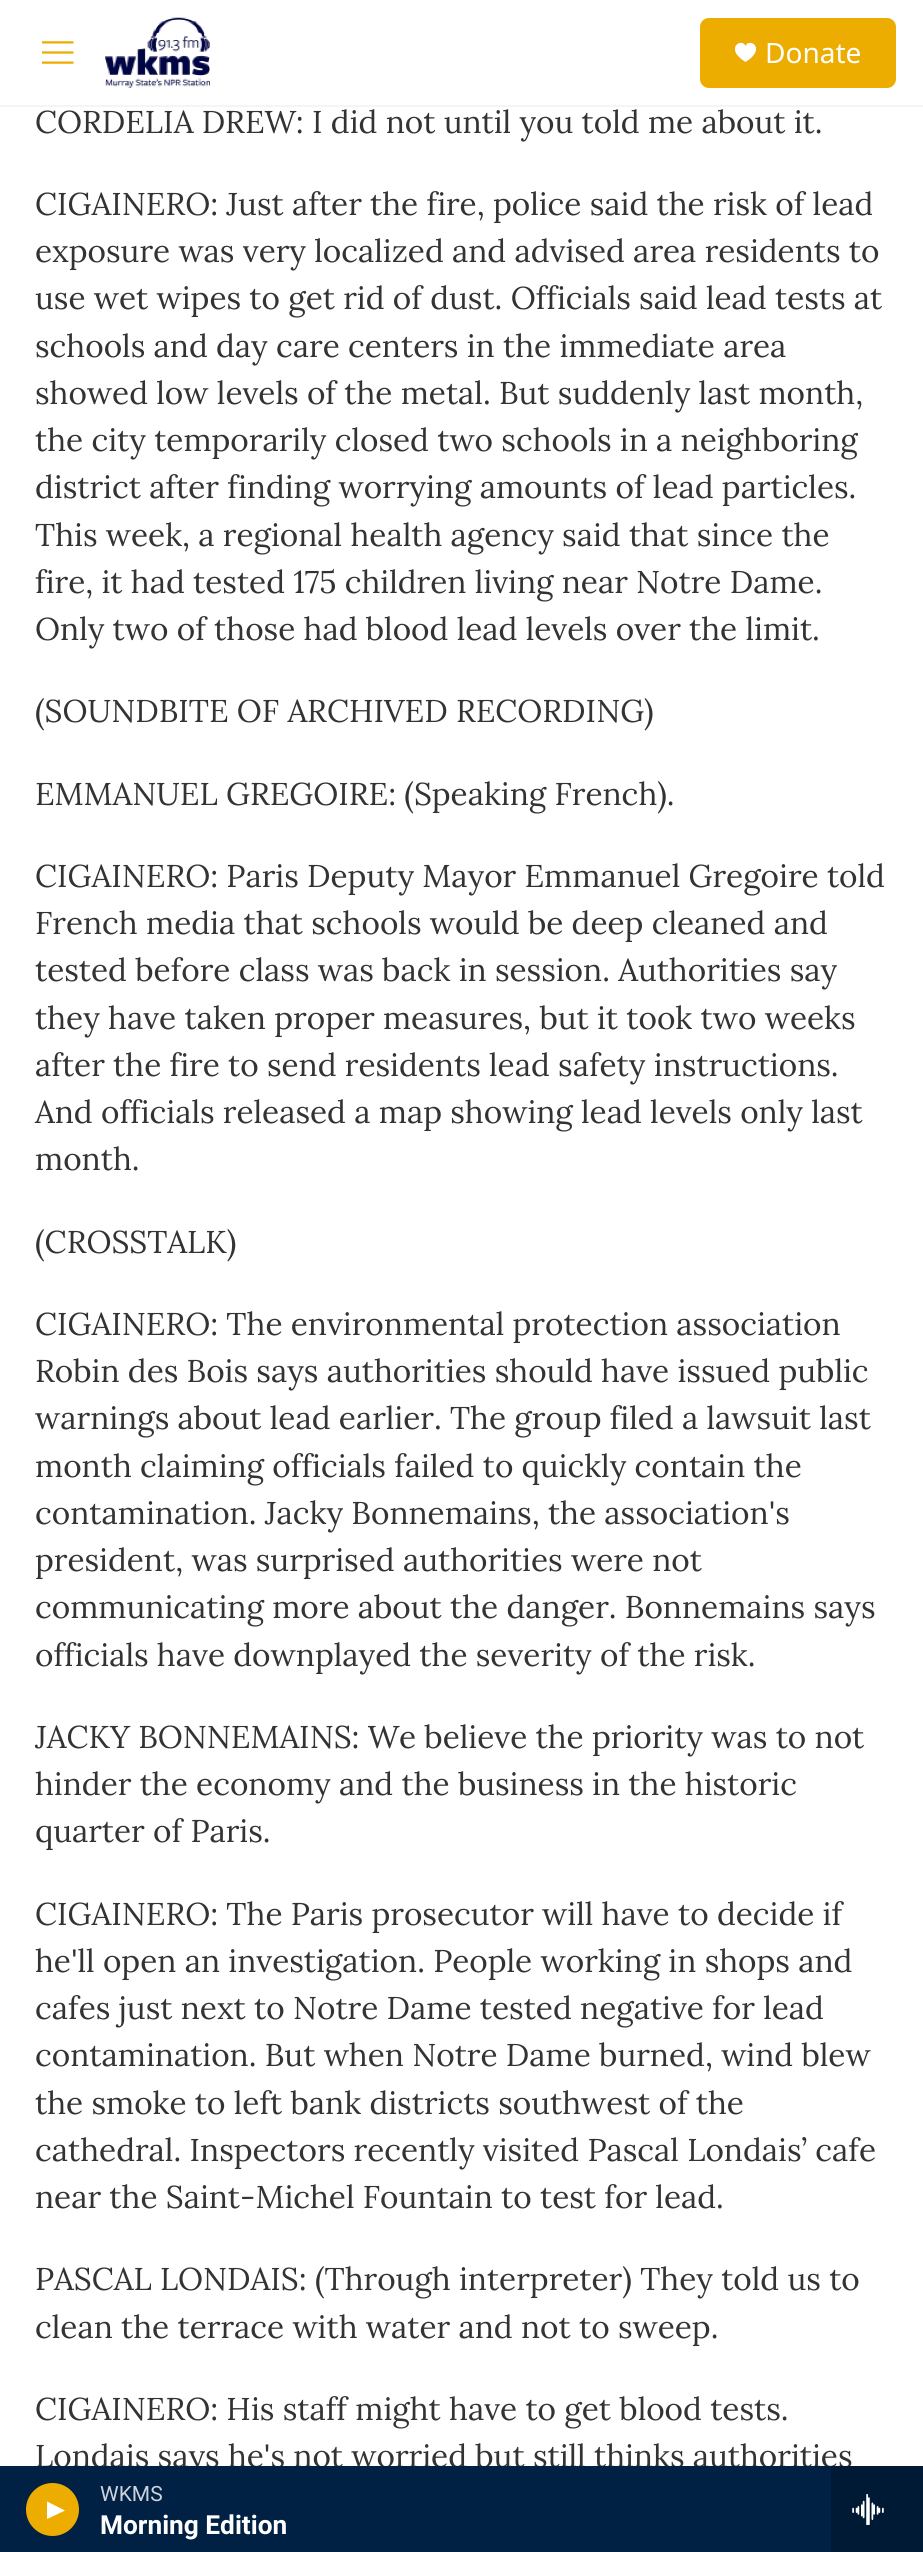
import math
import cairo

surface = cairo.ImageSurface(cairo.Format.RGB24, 923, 2552)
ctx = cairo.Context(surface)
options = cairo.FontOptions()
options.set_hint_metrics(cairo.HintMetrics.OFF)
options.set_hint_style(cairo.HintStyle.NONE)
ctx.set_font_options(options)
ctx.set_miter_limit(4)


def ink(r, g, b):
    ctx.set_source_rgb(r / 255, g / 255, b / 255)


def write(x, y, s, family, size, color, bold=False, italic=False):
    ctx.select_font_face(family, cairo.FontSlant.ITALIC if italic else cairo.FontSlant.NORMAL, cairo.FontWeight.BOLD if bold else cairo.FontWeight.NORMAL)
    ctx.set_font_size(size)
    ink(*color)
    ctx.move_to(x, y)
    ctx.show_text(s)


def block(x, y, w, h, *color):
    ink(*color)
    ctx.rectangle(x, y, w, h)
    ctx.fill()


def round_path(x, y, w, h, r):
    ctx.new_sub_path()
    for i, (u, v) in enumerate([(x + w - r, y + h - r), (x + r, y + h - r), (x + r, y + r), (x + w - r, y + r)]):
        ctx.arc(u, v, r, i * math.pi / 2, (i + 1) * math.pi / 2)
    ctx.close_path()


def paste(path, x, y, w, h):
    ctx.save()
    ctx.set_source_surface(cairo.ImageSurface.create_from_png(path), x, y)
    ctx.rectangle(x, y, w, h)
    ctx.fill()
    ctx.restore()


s1 = dict(family="Noto Sans", size=28, color=(255, 255, 255))
s2 = dict(family="Lora", size=31.5, color=(51, 51, 51))
s3 = dict(family="Roboto", size=21, color=(204, 211, 218))
s4 = dict(family="Roboto", size=26.25, color=(255, 255, 255), bold=True)

ink(255, 255, 255)
ctx.paint()
block(0, 105, 923, 2, 245, 245, 245)
paste("pic1.png", 42, 41, 32, 23)
paste("pic2.png", 105, 17, 105, 71)
ink(236, 173, 0)
round_path(700, 18, 196, 70, 9)
ctx.fill()
ink(255, 255, 255)
ctx.new_path()
ctx.move_to(745.5, 46)
ctx.curve_to(742, 37, 723.5, 48.5, 745.5, 62)
ctx.curve_to(767.5, 48.5, 749, 37, 745.5, 46)
ctx.close_path()
ctx.fill()
write(765, 63, "Donate", **s1)
write(35, 2467, "Londais says he's not worried but still thinks authorities", **s2)
block(0, 2466, 831, 86, 0, 33, 68)
ink(236, 173, 0)
ctx.new_path()
ctx.arc(52.5, 2509.5, 26.5, 0, 2 * math.pi)
ctx.fill()
ink(255, 255, 255)
ctx.new_path()
ctx.move_to(47, 2501.5)
ctx.line_to(65, 2510.5)
ctx.line_to(47, 2519)
ctx.close_path()
ctx.fill()
write(100, 2501, "WKMS", **s3)
write(100, 2534, "Morning Edition", **s4)
block(831, 2466, 92, 86, 0, 26, 54)
paste("pic3.png", 852, 2494, 32, 31)
write(35, 133, "CORDELIA DREW: I did not until you told me about it.", **s2)
write(35, 215, "CIGAINERO: Just after the fire, police said the risk of lead", **s2)
write(35, 262, "exposure was very localized and advised area residents to", **s2)
write(35, 309, "use wet wipes to get rid of dust. Officials said lead tests at", **s2)
write(35, 357, "schools and day care centers in the immediate area", **s2)
write(35, 404, "showed low levels of the metal. But suddenly last month,", **s2)
write(35, 451, "the city temporarily closed two schools in a neighboring", **s2)
write(35, 498, "district after finding worrying amounts of lead particles.", **s2)
write(35, 546, "This week, a regional health agency said that since the", **s2)
write(35, 593, "fire, it had tested 175 children living near Notre Dame.", **s2)
write(35, 640, "Only two of those had blood lead levels over the limit.", **s2)
write(35, 722, "(SOUNDBITE OF ARCHIVED RECORDING)", **s2)
write(35, 805, "EMMANUEL GREGOIRE: (Speaking French).", **s2)
write(35, 887, "CIGAINERO: Paris Deputy Mayor Emmanuel Gregoire told", **s2)
write(35, 934, "French media that schools would be deep cleaned and", **s2)
write(35, 981, "tested before class was back in session. Authorities say", **s2)
write(35, 1029, "they have taken proper measures, but it took two weeks", **s2)
write(35, 1076, "after the fire to send residents lead safety instructions.", **s2)
write(35, 1123, "And officials released a map showing lead levels only last", **s2)
write(35, 1170, "month.", **s2)
write(35, 1253, "(CROSSTALK)", **s2)
write(35, 1335, "CIGAINERO: The environmental protection association", **s2)
write(35, 1382, "Robin des Bois says authorities should have issued public", **s2)
write(35, 1429, "warnings about lead earlier. The group filed a lawsuit last", **s2)
write(35, 1477, "month claiming officials failed to quickly contain the", **s2)
write(35, 1524, "contamination. Jacky Bonnemains, the association's", **s2)
write(35, 1571, "president, was surprised authorities were not", **s2)
write(35, 1618, "communicating more about the danger. Bonnemains says", **s2)
write(35, 1666, "officials have downplayed the severity of the risk.", **s2)
write(35, 1748, "JACKY BONNEMAINS: We believe the priority was to not", **s2)
write(35, 1795, "hinder the economy and the business in the historic", **s2)
write(35, 1842, "quarter of Paris.", **s2)
write(35, 1925, "CIGAINERO: The Paris prosecutor will have to decide if", **s2)
write(35, 1972, "he'll open an investigation. People working in shops and", **s2)
write(35, 2019, "cafes just next to Notre Dame tested negative for lead", **s2)
write(35, 2066, "contamination. But when Notre Dame burned, wind blew", **s2)
write(35, 2114, "the smoke to left bank districts southwest of the", **s2)
write(35, 2161, "cathedral. Inspectors recently visited Pascal Londais’ cafe", **s2)
write(35, 2208, "near the Saint-Michel Fountain to test for lead.", **s2)
write(35, 2290, "PASCAL LONDAIS: (Through interpreter) They told us to", **s2)
write(35, 2338, "clean the terrace with water and not to sweep.", **s2)
write(35, 2420, "CIGAINERO: His staff might have to get blood tests.", **s2)
surface.write_to_png("screenshot.png")
